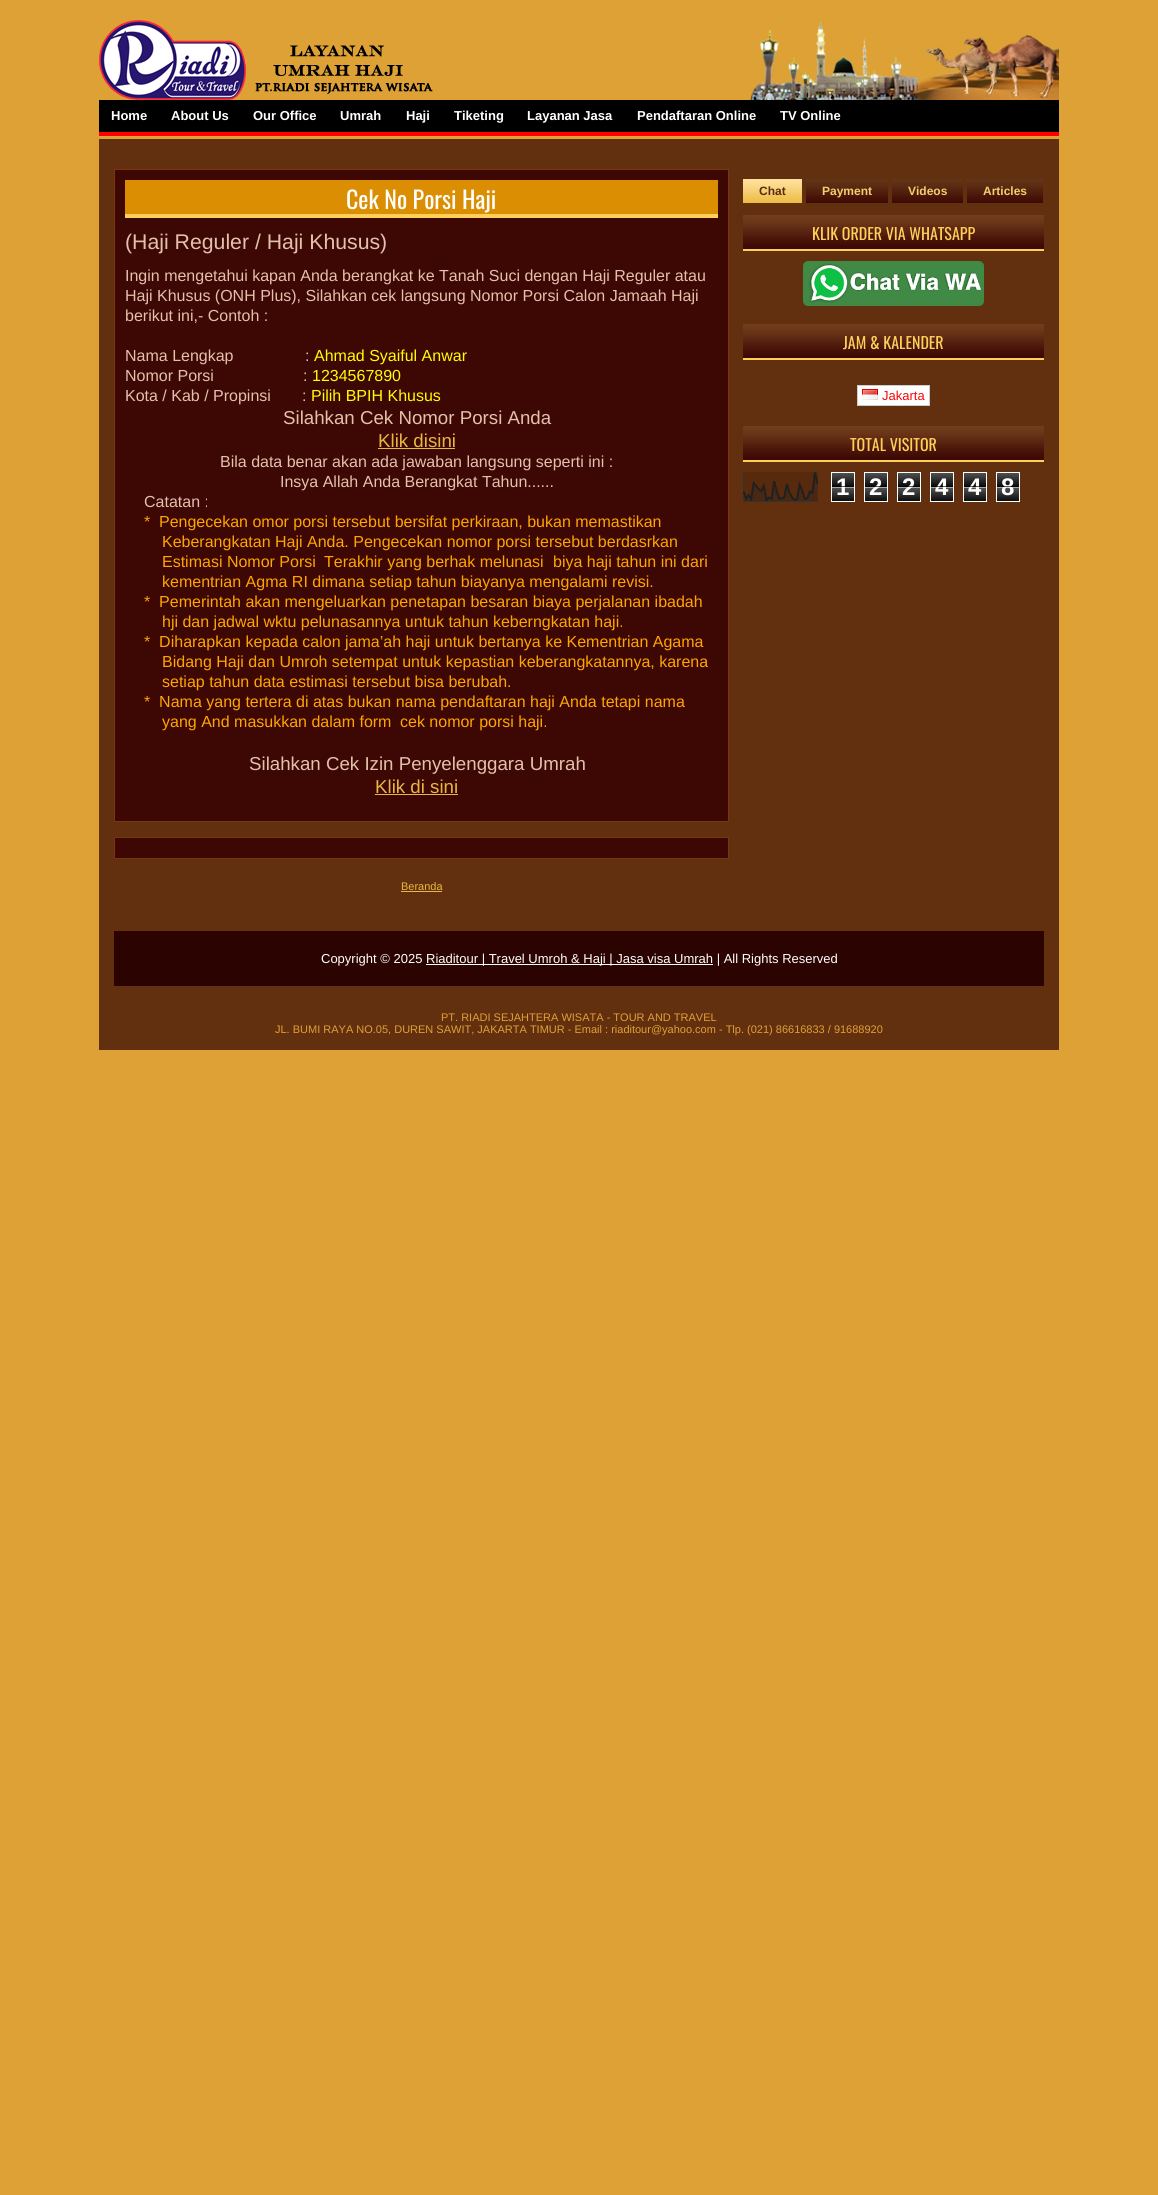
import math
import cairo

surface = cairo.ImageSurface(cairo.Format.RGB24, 1158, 2195)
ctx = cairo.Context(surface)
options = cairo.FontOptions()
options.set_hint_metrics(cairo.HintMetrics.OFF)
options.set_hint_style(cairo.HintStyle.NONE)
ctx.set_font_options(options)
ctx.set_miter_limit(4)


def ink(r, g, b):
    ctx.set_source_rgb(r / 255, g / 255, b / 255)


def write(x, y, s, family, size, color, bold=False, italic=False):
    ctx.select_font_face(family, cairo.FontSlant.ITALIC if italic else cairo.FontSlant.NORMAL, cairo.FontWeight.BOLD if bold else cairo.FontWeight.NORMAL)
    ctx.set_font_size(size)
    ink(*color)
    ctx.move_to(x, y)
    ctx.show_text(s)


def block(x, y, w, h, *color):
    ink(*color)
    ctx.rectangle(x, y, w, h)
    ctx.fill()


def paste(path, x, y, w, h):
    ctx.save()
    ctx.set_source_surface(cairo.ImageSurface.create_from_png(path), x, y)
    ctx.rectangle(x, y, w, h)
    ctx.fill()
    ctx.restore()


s1 = dict(family="Liberation Sans", size=13, color=(255, 255, 255), bold=True)
s2 = dict(family="Oswald", size=24, color=(255, 255, 255))
s3 = dict(family="Liberation Sans", size=21.25, color=(228, 193, 172))
s4 = dict(family="Liberation Sans", size=16, color=(228, 193, 172))
s5 = dict(family="Liberation Sans", size=16, color=(255, 255, 0))
s6 = dict(family="Liberation Sans", size=18.7, color=(228, 193, 172))
s7 = dict(family="Liberation Sans", size=18.7, color=(231, 184, 65))
s8 = dict(family="Liberation Sans", size=16, color=(255, 165, 0))
s9 = dict(family="Liberation Sans", size=11, color=(231, 184, 65))
s10 = dict(family="Liberation Sans", size=12, color=(90, 42, 18), bold=True)
s11 = dict(family="Liberation Sans", size=12, color=(245, 205, 109), bold=True)
s12 = dict(family="Oswald", size=16, color=(255, 208, 89))
s13 = dict(family="Liberation Sans", size=13, color=(246, 9, 9))
s14 = dict(family="Liberation Sans", size=24, color=(255, 255, 255), bold=True)
s15 = dict(family="Liberation Sans", size=13, color=(255, 255, 255))
s16 = dict(family="Liberation Sans", size=11, color=(224, 160, 55))

ink(221, 161, 53)
ctx.paint()
paste("pic1.png", 99, 20, 960, 80)
block(99, 100, 960, 32, 0, 0, 0)
block(99, 132, 960, 4, 255, 0, 0)
write(111, 120, "Home", **s1)
write(171, 120, "About Us", **s1)
write(253, 120, "Our Office", **s1)
write(340, 120, "Umrah", **s1)
write(406, 120, "Haji", **s1)
write(454, 120, "Tiketing", **s1)
write(527, 120, "Layanan Jasa", **s1)
write(637, 120, "Pendaftaran Online", **s1)
write(780, 120, "TV Online", **s1)
block(99, 139, 960, 911, 98, 47, 15)
ink(61, 7, 3)
ctx.rectangle(114.5, 169.5, 614, 652)
ctx.fill_preserve()
ink(123, 54, 12)
ctx.set_line_width(1)
ctx.stroke()
block(125, 180, 593, 34, 219, 142, 1)
block(125, 214, 593, 4, 255, 208, 89)
write(346, 209, "Cek No Porsi Haji", **s2)
write(125, 249, "(Haji Reguler / Haji Khusus)", **s3)
write(125, 281, "Ingin mengetahui kapan Anda berangkat ke Tanah Suci dengan Haji Reguler atau", **s4)
write(125, 301, "Haji Khusus (ONH Plus), Silahkan cek langsung Nomor Porsi Calon Jamaah Haji", **s4)
write(125, 321, "berikut ini,- Contoh :", **s4)
write(125, 361, "Nama Lengkap", **s4)
write(305, 361, ":", **s4)
write(314, 361, "Ahmad Syaiful Anwar", **s5)
write(125, 381, "Nomor Porsi", **s4)
write(303, 381, ":", **s4)
write(312, 381, "1234567890", **s5)
write(125, 401, "Kota / Kab / Propinsi", **s4)
write(302, 401, ":", **s4)
write(311, 401, "Pilih BPIH Khusus", **s5)
write(283, 424, "Silahkan Cek Nomor Porsi Anda", **s6)
write(378, 447, "Klik disini", **s7)
block(378, 448, 77, 1, 231, 184, 65)
write(220, 467, "Bila data benar akan ada jawaban langsung seperti ini :", **s4)
write(280, 487, "Insya Allah Anda Berangkat Tahun......", **s4)
write(144, 507, "Catatan :", **s4)
write(144, 527, "*", **s8)
write(159, 527, "Pengecekan omor porsi tersebut bersifat perkiraan, bukan memastikan", **s8)
write(162, 547, "Keberangkatan Haji Anda. Pengecekan nomor porsi tersebut berdasrkan", **s8)
write(162, 567, "Estimasi Nomor Porsi", **s8)
write(324, 567, "Terakhir yang berhak melunasi", **s8)
write(553, 567, "biya haji tahun ini dari", **s8)
write(162, 587, "kementrian Agma RI dimana setiap tahun biayanya mengalami revisi.", **s8)
write(144, 607, "*  Pemerintah akan mengeluarkan penetapan besaran biaya perjalanan ibadah", **s8)
write(162, 627, "hji dan jadwal wktu pelunasannya untuk tahun keberngkatan haji.", **s8)
write(144, 647, "*  Diharapkan kepada calon jama’ah haji untuk bertanya ke Kementrian Agama", **s8)
write(162, 667, "Bidang Haji dan Umroh setempat untuk kepastian keberangkatannya, karena", **s8)
write(162, 687, "setiap tahun data estimasi tersebut bisa berubah.", **s8)
write(144, 707, "*  Nama yang tertera di atas bukan nama pendaftaran haji Anda tetapi nama", **s8)
write(162, 727, "yang And masukkan dalam form", **s8)
write(400, 727, "cek nomor porsi haji.", **s8)
write(249, 770, "Silahkan Cek Izin Penyelenggara Umrah", **s6)
write(375, 793, "Klik di sini", **s7)
block(375, 794, 83, 1, 231, 184, 65)
ink(61, 7, 3)
ctx.rectangle(114.5, 837.5, 614, 21)
ctx.fill_preserve()
ink(123, 54, 12)
ctx.stroke()
write(401, 890, "Beranda", **s9)
block(401, 891, 41, 1, 231, 184, 65)
paste("pic2.png", 743, 179, 59, 24)
write(759, 195, "Chat", **s10)
paste("pic3.png", 806, 179, 82, 24)
write(822, 195, "Payment", **s11)
paste("pic4.png", 892, 179, 71, 24)
write(908, 195, "Videos", **s11)
paste("pic5.png", 967, 179, 76, 24)
write(983, 195, "Articles", **s11)
paste("pic6.png", 743, 215, 301, 36)
write(812, 240, "KLIK ORDER VIA WHATSAPP", **s12)
paste("pic7.png", 803, 261, 181, 45)
paste("pic6.png", 743, 324, 301, 36)
write(843, 349, "JAM & KALENDER", **s12)
ink(255, 255, 255)
ctx.rectangle(857.5, 385.5, 72, 20)
ctx.fill_preserve()
ink(204, 204, 204)
ctx.stroke()
paste("pic8.png", 862, 389, 16, 11)
write(882, 400, "Jakarta", **s13)
paste("pic6.png", 743, 426, 301, 36)
write(850, 451, "TOTAL VISITOR", **s12)
paste("pic9.png", 743, 472, 75, 30)
paste("pic10.png", 832, 473, 22, 28)
ctx.rectangle(831.5, 472.5, 23, 29)
ink(255, 255, 255)
ctx.stroke()
write(836, 495, "1", **s14)
ctx.set_source_rgba(0, 0, 0, 0.65)
ctx.rectangle(832, 486, 22, 1)
ctx.fill()
ctx.set_source_rgba(1, 1, 1, 0.65)
ctx.rectangle(832, 487, 22, 1)
ctx.fill()
paste("pic10.png", 865, 473, 22, 28)
ctx.rectangle(864.5, 472.5, 23, 29)
ink(255, 255, 255)
ctx.stroke()
write(869, 495, "2", **s14)
ctx.set_source_rgba(0, 0, 0, 0.65)
ctx.rectangle(865, 486, 22, 1)
ctx.fill()
ctx.set_source_rgba(1, 1, 1, 0.65)
ctx.rectangle(865, 487, 22, 1)
ctx.fill()
paste("pic10.png", 898, 473, 22, 28)
ctx.rectangle(897.5, 472.5, 23, 29)
ink(255, 255, 255)
ctx.stroke()
write(902, 495, "2", **s14)
ctx.set_source_rgba(0, 0, 0, 0.65)
ctx.rectangle(898, 486, 22, 1)
ctx.fill()
ctx.set_source_rgba(1, 1, 1, 0.65)
ctx.rectangle(898, 487, 22, 1)
ctx.fill()
paste("pic10.png", 931, 473, 22, 28)
ctx.rectangle(930.5, 472.5, 23, 29)
ink(255, 255, 255)
ctx.stroke()
write(935, 495, "4", **s14)
ctx.set_source_rgba(0, 0, 0, 0.65)
ctx.rectangle(931, 486, 22, 1)
ctx.fill()
ctx.set_source_rgba(1, 1, 1, 0.65)
ctx.rectangle(931, 487, 22, 1)
ctx.fill()
paste("pic10.png", 964, 473, 22, 28)
ctx.rectangle(963.5, 472.5, 23, 29)
ink(255, 255, 255)
ctx.stroke()
write(968, 495, "4", **s14)
ctx.set_source_rgba(0, 0, 0, 0.65)
ctx.rectangle(964, 486, 22, 1)
ctx.fill()
ctx.set_source_rgba(1, 1, 1, 0.65)
ctx.rectangle(964, 487, 22, 1)
ctx.fill()
paste("pic10.png", 997, 473, 22, 28)
ctx.rectangle(996.5, 472.5, 23, 29)
ink(255, 255, 255)
ctx.stroke()
write(1001, 495, "8", **s14)
ctx.set_source_rgba(0, 0, 0, 0.65)
ctx.rectangle(997, 486, 22, 1)
ctx.fill()
ctx.set_source_rgba(1, 1, 1, 0.65)
ctx.rectangle(997, 487, 22, 1)
ctx.fill()
block(114, 931, 930, 55, 43, 4, 1)
write(321, 963, "Copyright © 2025", **s15)
block(426, 964, 287, 1, 255, 255, 255)
write(426, 963, "Riaditour | Travel Umroh & Haji | Jasa visa Umrah | All Rights Reserved", **s15)
write(441, 1021, "PT. RIADI SEJAHTERA WISATA - TOUR AND TRAVEL", **s16)
write(275, 1033, "JL. BUMI RAYA NO.05, DUREN SAWIT, JAKARTA TIMUR - Email : riaditour@yahoo.com - Tlp. (021) 86616833 / 91688920", **s16)
surface.write_to_png("screenshot.png")
